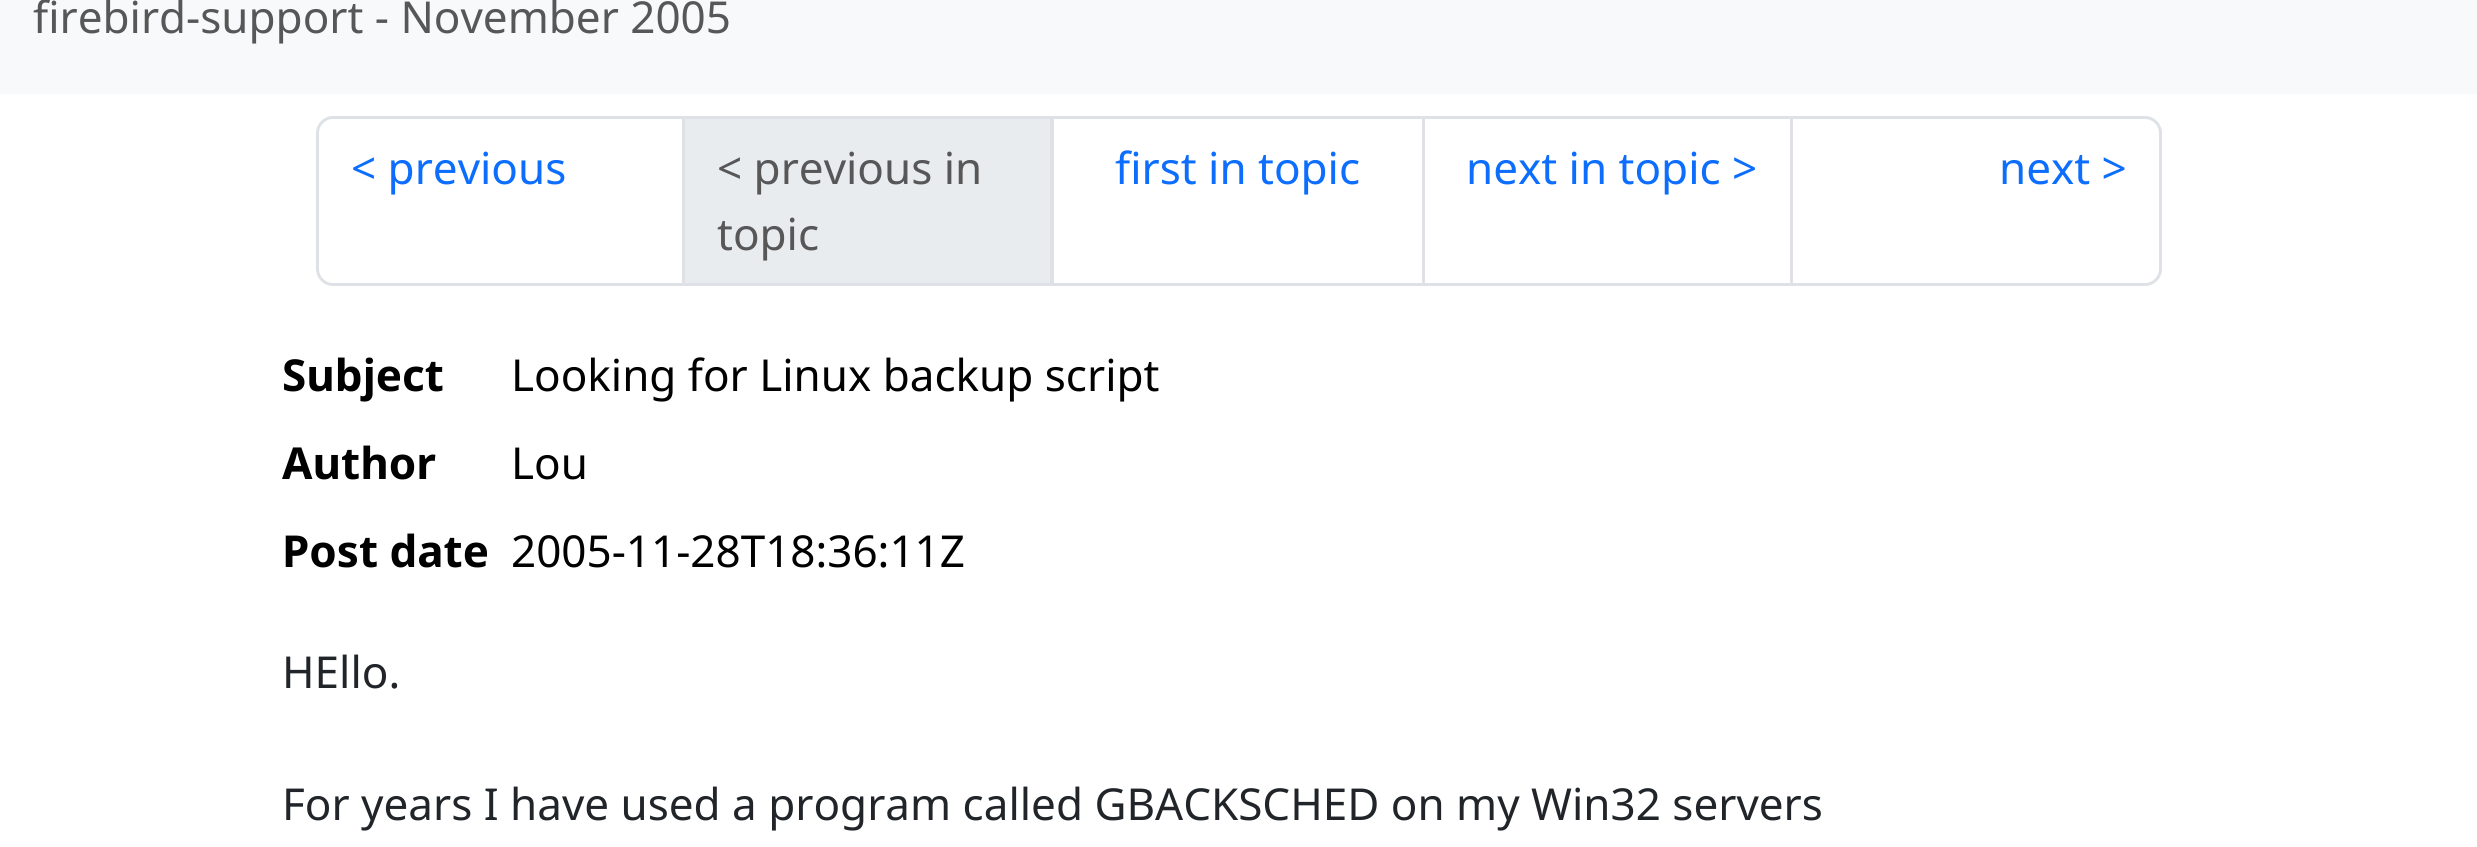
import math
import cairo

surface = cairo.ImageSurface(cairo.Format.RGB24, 2477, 847)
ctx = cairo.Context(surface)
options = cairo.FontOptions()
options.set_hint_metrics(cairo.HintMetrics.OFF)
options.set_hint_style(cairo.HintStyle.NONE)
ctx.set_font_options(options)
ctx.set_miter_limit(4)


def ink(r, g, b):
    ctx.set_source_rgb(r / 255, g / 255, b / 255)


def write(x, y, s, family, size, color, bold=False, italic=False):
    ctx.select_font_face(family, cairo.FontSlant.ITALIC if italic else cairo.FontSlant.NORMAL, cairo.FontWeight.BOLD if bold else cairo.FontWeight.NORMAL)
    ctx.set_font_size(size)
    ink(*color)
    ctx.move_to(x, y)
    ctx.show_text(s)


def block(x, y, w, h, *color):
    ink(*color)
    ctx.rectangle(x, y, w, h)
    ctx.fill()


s1 = dict(family="Noto Sans", size=44, color=(87, 87, 88))
s2 = dict(family="Noto Sans", size=44, color=(13, 110, 253))
s3 = dict(family="Noto Sans", size=44, color=(0, 0, 0), bold=True)
s4 = dict(family="Noto Sans", size=44, color=(0, 0, 0))
s5 = dict(family="Noto Sans", size=44, color=(33, 37, 41))

ink(255, 255, 255)
ctx.paint()
block(0, 0, 2477, 94, 248, 249, 250)
write(33, 33, "firebird-support - November 2005", **s1)
ctx.new_path()
ctx.move_to(333, 117.5)
ctx.line_to(683.5, 117.5)
ctx.line_to(683.5, 284.5)
ctx.line_to(333, 284.5)
ctx.curve_to(324.5, 284.5, 317.5, 277.5, 317.5, 269)
ctx.line_to(317.5, 133)
ctx.curve_to(317.5, 124.5, 324.5, 117.5, 333, 117.5)
ctx.close_path()
ink(222, 226, 230)
ctx.set_line_width(3)
ctx.stroke()
write(351, 184, "< previous", **s2)
ink(233, 236, 239)
ctx.rectangle(683.5, 117.5, 368, 167)
ctx.fill_preserve()
ink(222, 226, 230)
ctx.stroke()
write(717, 184, "< previous in", **s1)
write(717, 250, "topic", **s1)
ctx.rectangle(1052.5, 117.5, 371, 167)
ink(222, 226, 230)
ctx.stroke()
write(1115, 184, "first in topic", **s2)
ctx.rectangle(1423.5, 117.5, 368, 167)
ink(222, 226, 230)
ctx.stroke()
write(1466, 184, "next in topic >", **s2)
ink(255, 255, 255)
ctx.new_path()
ctx.move_to(1791.5, 117.5)
ctx.line_to(2145, 117.5)
ctx.curve_to(2153.5, 117.5, 2160.5, 124.5, 2160.5, 133)
ctx.line_to(2160.5, 269)
ctx.curve_to(2160.5, 277.5, 2153.5, 284.5, 2145, 284.5)
ctx.line_to(1791.5, 284.5)
ctx.close_path()
ctx.fill_preserve()
ink(222, 226, 230)
ctx.stroke()
write(1999, 184, "next >", **s2)
write(282, 391, "Subject", **s3)
write(511, 391, "Looking for Linux backup script", **s4)
write(282, 479, "Author", **s3)
write(511, 479, "Lou", **s4)
write(282, 567, "Post date", **s3)
write(511, 567, "2005-11-28T18:36:11Z", **s4)
write(282, 688, "HEllo.", **s5)
write(282, 820, "For years I have used a program called GBACKSCHED on my Win32 servers", **s5)
surface.write_to_png("screenshot.png")
